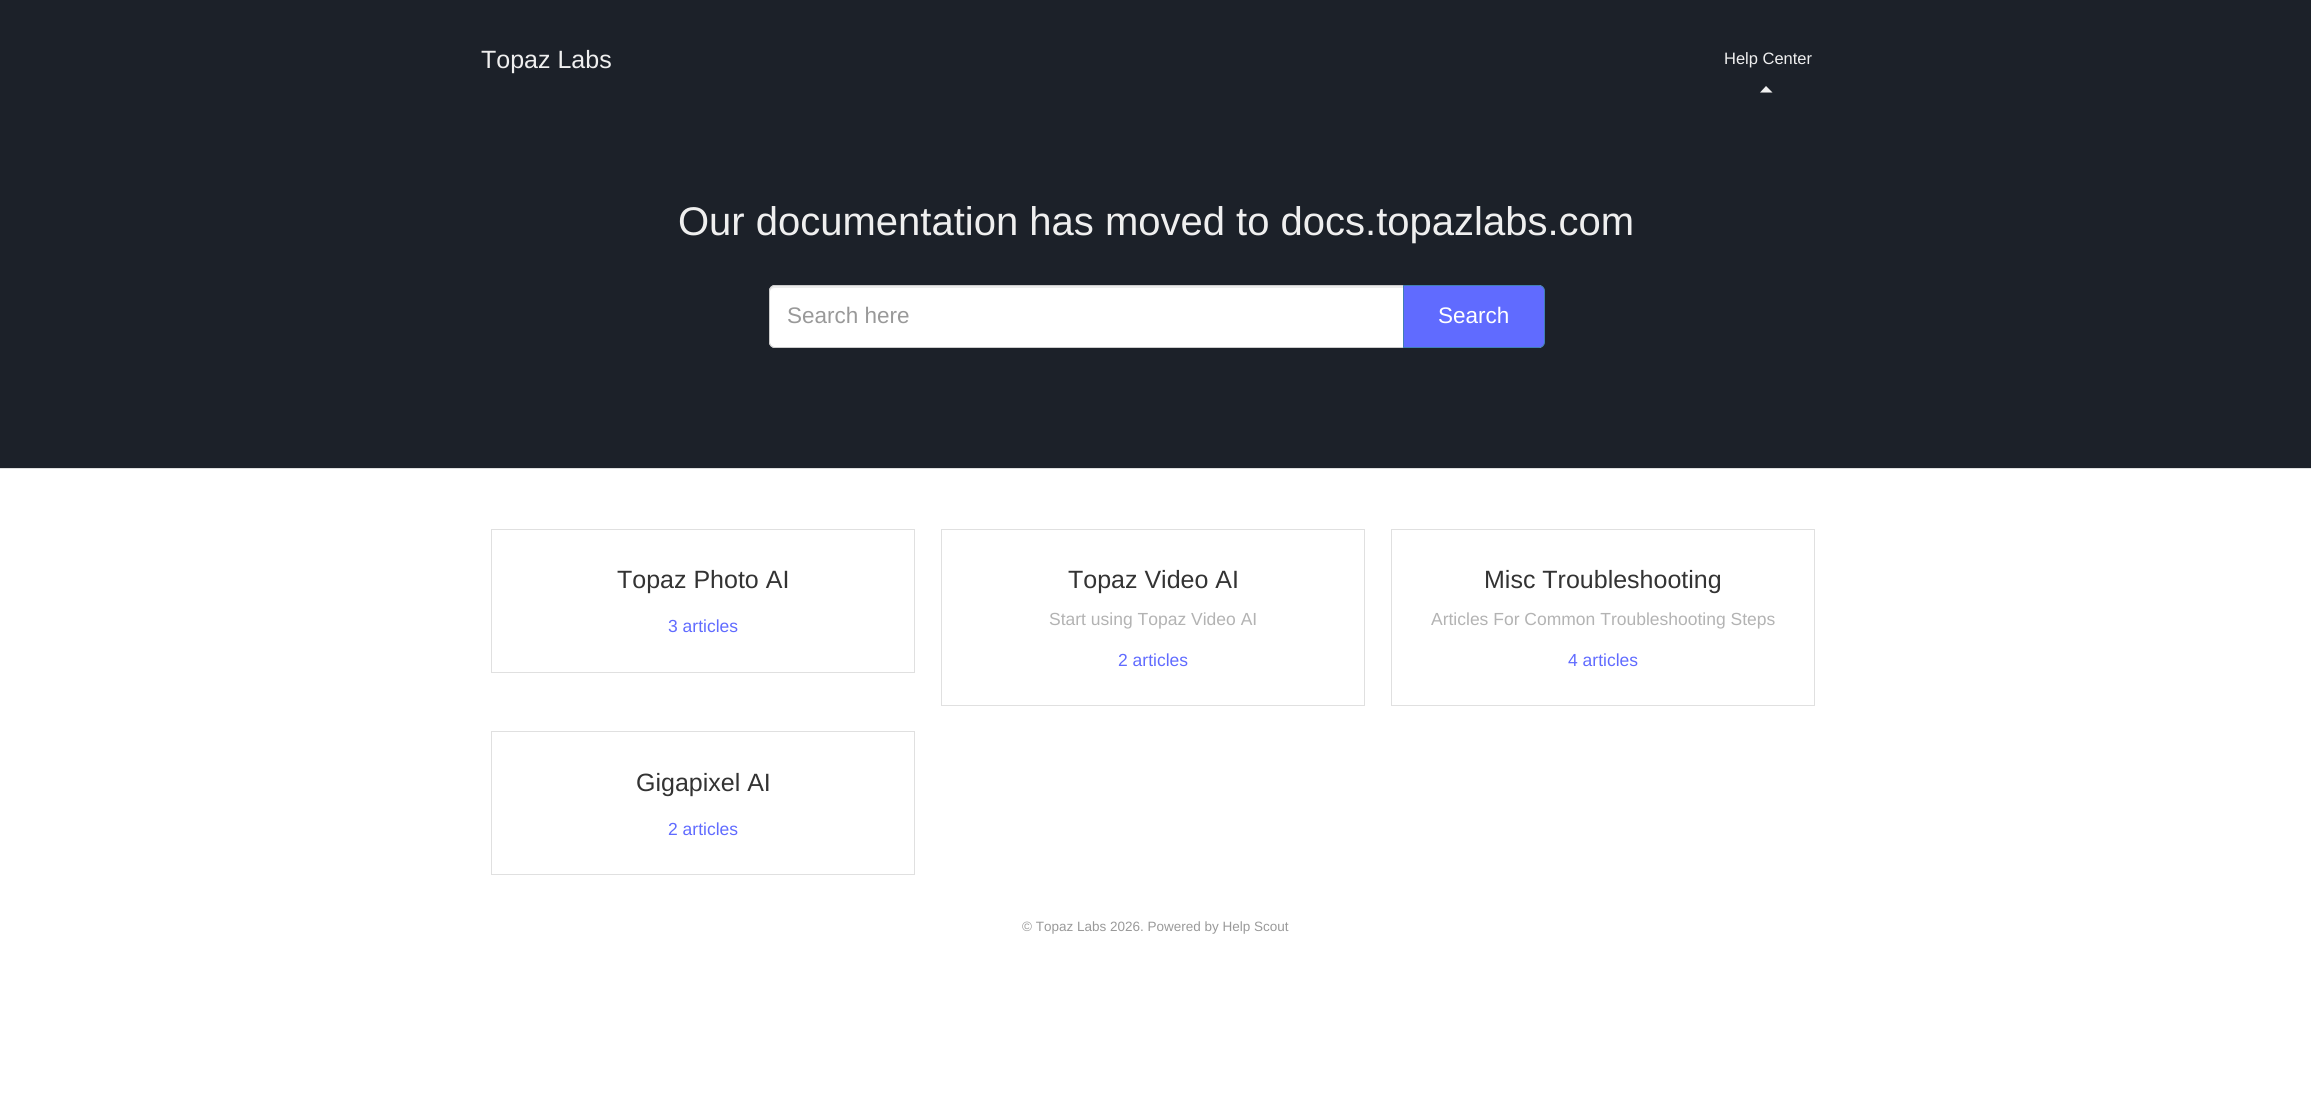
import math
import cairo

surface = cairo.ImageSurface(cairo.Format.RGB24, 2311, 1095)
ctx = cairo.Context(surface)
options = cairo.FontOptions()
options.set_hint_metrics(cairo.HintMetrics.OFF)
options.set_hint_style(cairo.HintStyle.NONE)
ctx.set_font_options(options)
ctx.set_miter_limit(4)


def ink(r, g, b):
    ctx.set_source_rgb(r / 255, g / 255, b / 255)


def write(x, y, s, family, size, color, bold=False, italic=False):
    ctx.select_font_face(family, cairo.FontSlant.ITALIC if italic else cairo.FontSlant.NORMAL, cairo.FontWeight.BOLD if bold else cairo.FontWeight.NORMAL)
    ctx.set_font_size(size)
    ink(*color)
    ctx.move_to(x, y)
    ctx.show_text(s)


def block(x, y, w, h, *color):
    ink(*color)
    ctx.rectangle(x, y, w, h)
    ctx.fill()


def round_path(x, y, w, h, r):
    ctx.new_sub_path()
    for i, (u, v) in enumerate([(x + w - r, y + h - r), (x + r, y + h - r), (x + r, y + r), (x + w - r, y + r)]):
        ctx.arc(u, v, r, i * math.pi / 2, (i + 1) * math.pi / 2)
    ctx.close_path()


s1 = dict(family="Liberation Sans", size=25, color=(239, 239, 239))
s2 = dict(family="Liberation Sans", size=16.5, color=(239, 239, 239))
s3 = dict(family="Liberation Sans", size=40, color=(239, 239, 239))
s4 = dict(family="Liberation Sans", size=22.5, color=(153, 153, 153))
s5 = dict(family="Liberation Sans", size=22.5, color=(255, 255, 255))
s6 = dict(family="Liberation Sans", size=25, color=(51, 51, 51))
s7 = dict(family="Liberation Sans", size=17.5, color=(96, 107, 255))
s8 = dict(family="Liberation Sans", size=17.5, color=(179, 179, 179))
s9 = dict(family="Liberation Sans", size=13.5, color=(153, 153, 153))

ink(255, 255, 255)
ctx.paint()
block(0, 0, 2311, 468, 28, 33, 41)
write(481, 68, "Topaz Labs", **s1)
write(1724, 64, "Help Center", **s2)
ink(240, 240, 240)
ctx.new_path()
ctx.move_to(1772.5, 92.5)
ctx.line_to(1760, 92.5)
ctx.line_to(1766, 86)
ctx.close_path()
ctx.fill()
block(0, 468, 2311, 1, 223, 223, 223)
write(678, 235, "Our documentation has moved to docs.topazlabs.com", **s3)
ink(255, 255, 255)
round_path(769, 285, 775, 63, 6)
ctx.fill()
ink(236, 236, 236)
ctx.new_path()
ctx.move_to(775, 288)
ctx.line_to(1538, 288)
ctx.curve_to(1540, 288, 1542, 290, 1542, 292)
ctx.line_to(1542, 342)
ctx.line_to(1542, 345)
ctx.curve_to(1542, 344, 1543, 342, 1543, 341)
ctx.line_to(1543, 291)
ctx.curve_to(1543, 288, 1541, 286, 1538, 286)
ctx.line_to(775, 286)
ctx.curve_to(772, 286, 770, 288, 770, 291)
ctx.line_to(770, 292)
ctx.curve_to(770, 290, 772, 288, 775, 288)
ctx.close_path()
ctx.fill()
round_path(769.5, 285.5, 774, 62, 5.5)
ink(204, 204, 204)
ctx.set_line_width(1)
ctx.stroke()
write(787, 323, "Search here", **s4)
ink(96, 107, 255)
ctx.new_path()
ctx.move_to(1403.5, 285.5)
ctx.line_to(1539, 285.5)
ctx.curve_to(1542, 285.5, 1544.5, 288, 1544.5, 291)
ctx.line_to(1544.5, 342)
ctx.curve_to(1544.5, 345, 1542, 347.5, 1539, 347.5)
ctx.line_to(1403.5, 347.5)
ctx.close_path()
ctx.fill_preserve()
ink(64, 127, 179)
ctx.stroke()
write(1438, 323, "Search", **s5)
ctx.rectangle(491.5, 529.5, 423, 143)
ink(224, 224, 224)
ctx.stroke()
write(617, 588, "Topaz Photo AI", **s6)
write(668, 632, "3 articles", **s7)
ctx.rectangle(941.5, 529.5, 423, 176)
ink(224, 224, 224)
ctx.stroke()
write(1068, 588, "Topaz Video AI", **s6)
write(1049, 625, "Start using Topaz Video AI", **s8)
write(1118, 666, "2 articles", **s7)
ctx.rectangle(1391.5, 529.5, 423, 176)
ink(224, 224, 224)
ctx.stroke()
write(1484, 588, "Misc Troubleshooting", **s6)
write(1431, 625, "Articles For Common Troubleshooting Steps", **s8)
write(1568, 666, "4 articles", **s7)
ctx.rectangle(491.5, 731.5, 423, 143)
ink(224, 224, 224)
ctx.stroke()
write(636, 791, "Gigapixel AI", **s6)
write(668, 835, "2 articles", **s7)
write(1022, 931, "© Topaz Labs 2026. Powered by Help Scout", **s9)
surface.write_to_png("screenshot.png")
